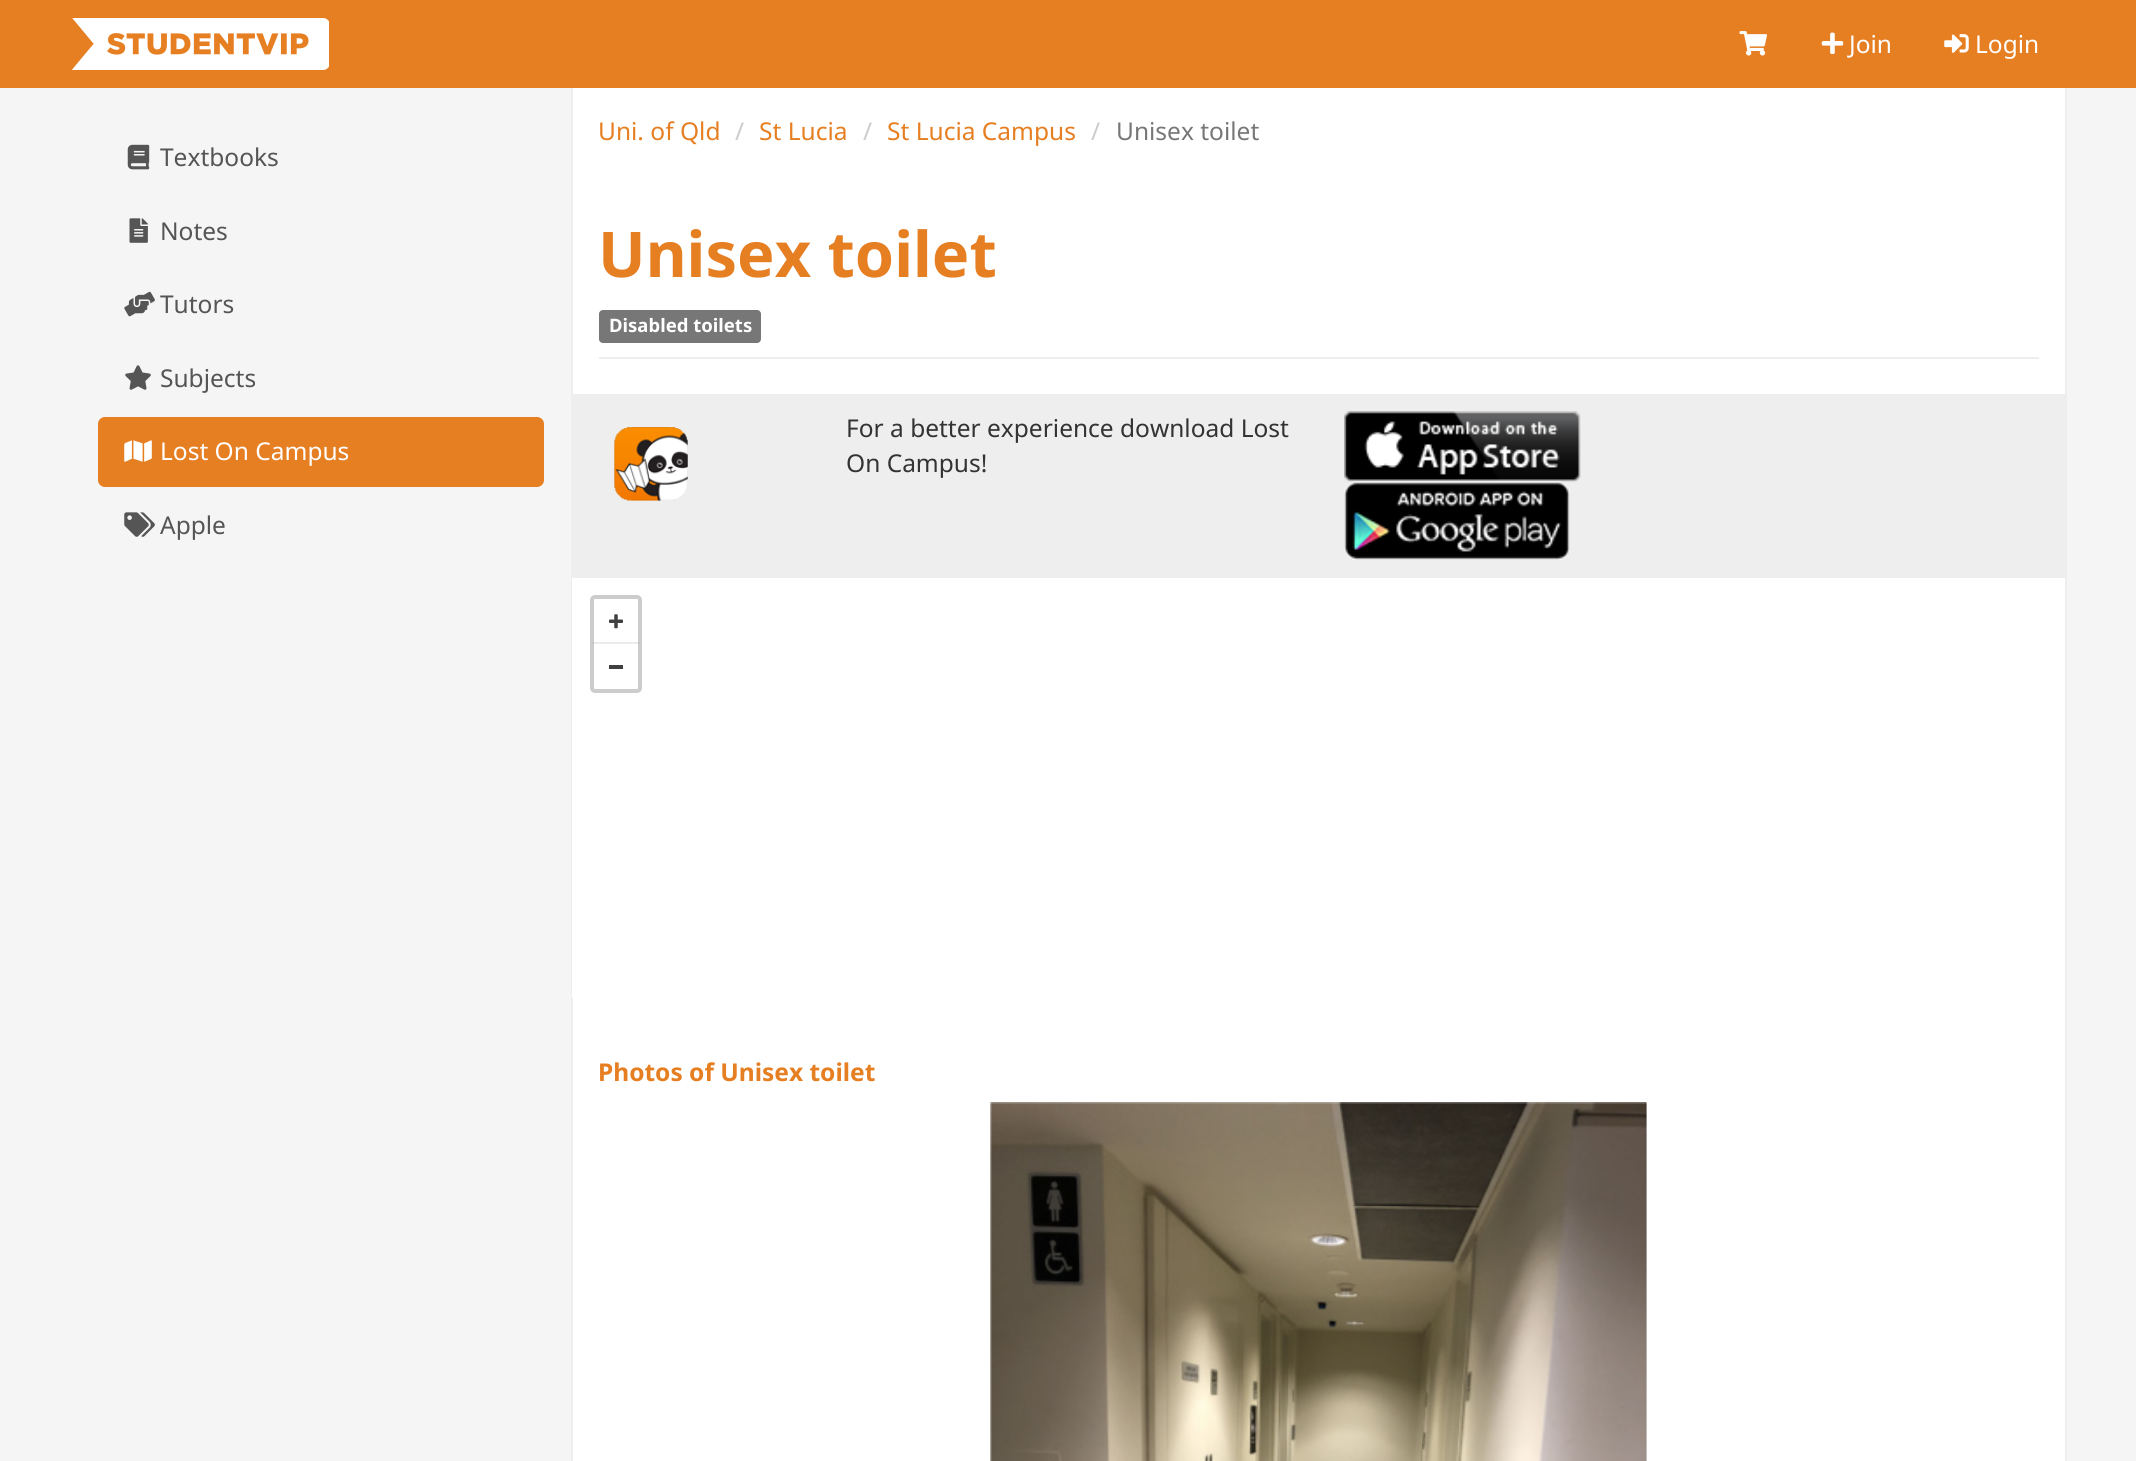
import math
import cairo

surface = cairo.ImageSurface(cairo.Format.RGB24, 2136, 1461)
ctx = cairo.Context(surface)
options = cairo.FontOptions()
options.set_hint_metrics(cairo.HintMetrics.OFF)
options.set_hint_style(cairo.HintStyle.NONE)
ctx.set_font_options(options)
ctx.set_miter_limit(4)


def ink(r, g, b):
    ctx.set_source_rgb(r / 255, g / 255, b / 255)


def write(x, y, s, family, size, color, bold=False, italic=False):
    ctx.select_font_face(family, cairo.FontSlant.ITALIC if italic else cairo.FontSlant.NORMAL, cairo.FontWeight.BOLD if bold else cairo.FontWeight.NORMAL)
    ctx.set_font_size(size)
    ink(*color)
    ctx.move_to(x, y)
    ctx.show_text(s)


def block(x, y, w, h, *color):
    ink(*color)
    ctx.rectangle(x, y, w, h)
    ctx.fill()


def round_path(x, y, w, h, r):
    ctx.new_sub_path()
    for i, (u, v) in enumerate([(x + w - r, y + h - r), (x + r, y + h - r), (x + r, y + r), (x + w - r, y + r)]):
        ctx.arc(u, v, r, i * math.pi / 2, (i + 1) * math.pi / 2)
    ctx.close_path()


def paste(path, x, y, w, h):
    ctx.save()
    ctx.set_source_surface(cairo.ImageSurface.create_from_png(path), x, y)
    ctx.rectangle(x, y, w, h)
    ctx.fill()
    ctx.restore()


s1 = dict(family="Noto Sans", size=24.5, color=(255, 255, 255))
s2 = dict(family="Noto Sans", size=24.5, color=(85, 85, 85))
s3 = dict(family="Noto Sans", size=24.5, color=(230, 126, 34))
s4 = dict(family="Noto Sans", size=24.5, color=(204, 204, 204))
s5 = dict(family="Noto Sans", size=24.5, color=(119, 119, 119))
s6 = dict(family="Noto Sans", size=63, color=(230, 126, 34), bold=True)
s7 = dict(family="Noto Sans", size=18.5, color=(255, 255, 255), bold=True)
s8 = dict(family="Noto Sans", size=24.5, color=(51, 51, 51))
s9 = dict(family="Noto Sans", size=24.5, color=(230, 126, 34), bold=True)

ink(245, 245, 245)
ctx.paint()
block(0, 0, 2136, 88, 230, 126, 34)
paste("pic1.png", 72, 18, 257, 52)
paste("pic2.png", 1739, 31, 28, 25)
paste("pic3.png", 1821, 32, 23, 22)
write(1849, 53, "Join", **s1)
paste("pic4.png", 1944, 34, 25, 19)
write(1975, 53, "Login", **s1)
paste("pic5.png", 127, 144, 23, 26)
write(160, 166, "Textbooks", **s2)
paste("pic6.png", 129, 218, 19, 25)
write(160, 240, "Notes", **s2)
paste("pic7.png", 124, 291, 31, 26)
write(160, 313, "Tutors", **s2)
paste("pic8.png", 125, 365, 26, 25)
write(160, 387, "Subjects", **s2)
ink(230, 126, 34)
round_path(98, 417, 446, 70, 7)
ctx.fill()
paste("pic9.png", 124, 440, 28, 22)
write(160, 460, "Lost On Campus", **s1)
paste("pic10.png", 124, 512, 31, 25)
write(160, 534, "Apple", **s2)
block(573, 88, 1492, 1373, 255, 255, 255)
block(2065, 88, 2, 1373, 238, 238, 238)
block(571, 88, 2, 1373, 238, 238, 238)
write(598, 140, "Uni. of Qld", **s3)
write(735, 140, "/", **s4)
write(759, 140, "St Lucia", **s3)
write(863, 140, "/", **s4)
write(887, 140, "St Lucia Campus", **s3)
write(1091, 140, "/", **s4)
write(1116, 140, "Unisex toilet", **s5)
block(599, 357, 1440, 2, 238, 238, 238)
write(598, 277, "Unisex toilet", **s6)
ink(119, 119, 119)
round_path(599, 310, 162, 33, 4)
ctx.fill()
write(609, 332, "Disabled toilets", **s7)
block(573, 394, 1492, 184, 238, 238, 238)
paste("pic11.png", 614, 427, 74, 74)
write(846, 437, "For a better experience download Lost", **s8)
write(846, 472, "On Campus!", **s8)
paste("pic12.png", 1344, 411, 237, 71)
paste("pic13.png", 1344, 481, 226, 79)
block(572, 578, 1, 420, 255, 255, 255)
round_path(592, 597, 48, 94, 3)
ink(204, 204, 204)
ctx.set_line_width(4)
ctx.stroke()
paste("pic14.png", 609, 614, 14, 15)
ctx.set_source_rgba(0, 0, 0, 0.08)
ctx.rectangle(593, 642, 46, 2)
ctx.fill()
block(609, 665, 14, 4, 64, 64, 64)
write(598, 1081, "Photos of Unisex toilet", **s9)
paste("pic15.png", 990, 1102, 657, 359)
surface.write_to_png("screenshot.png")
